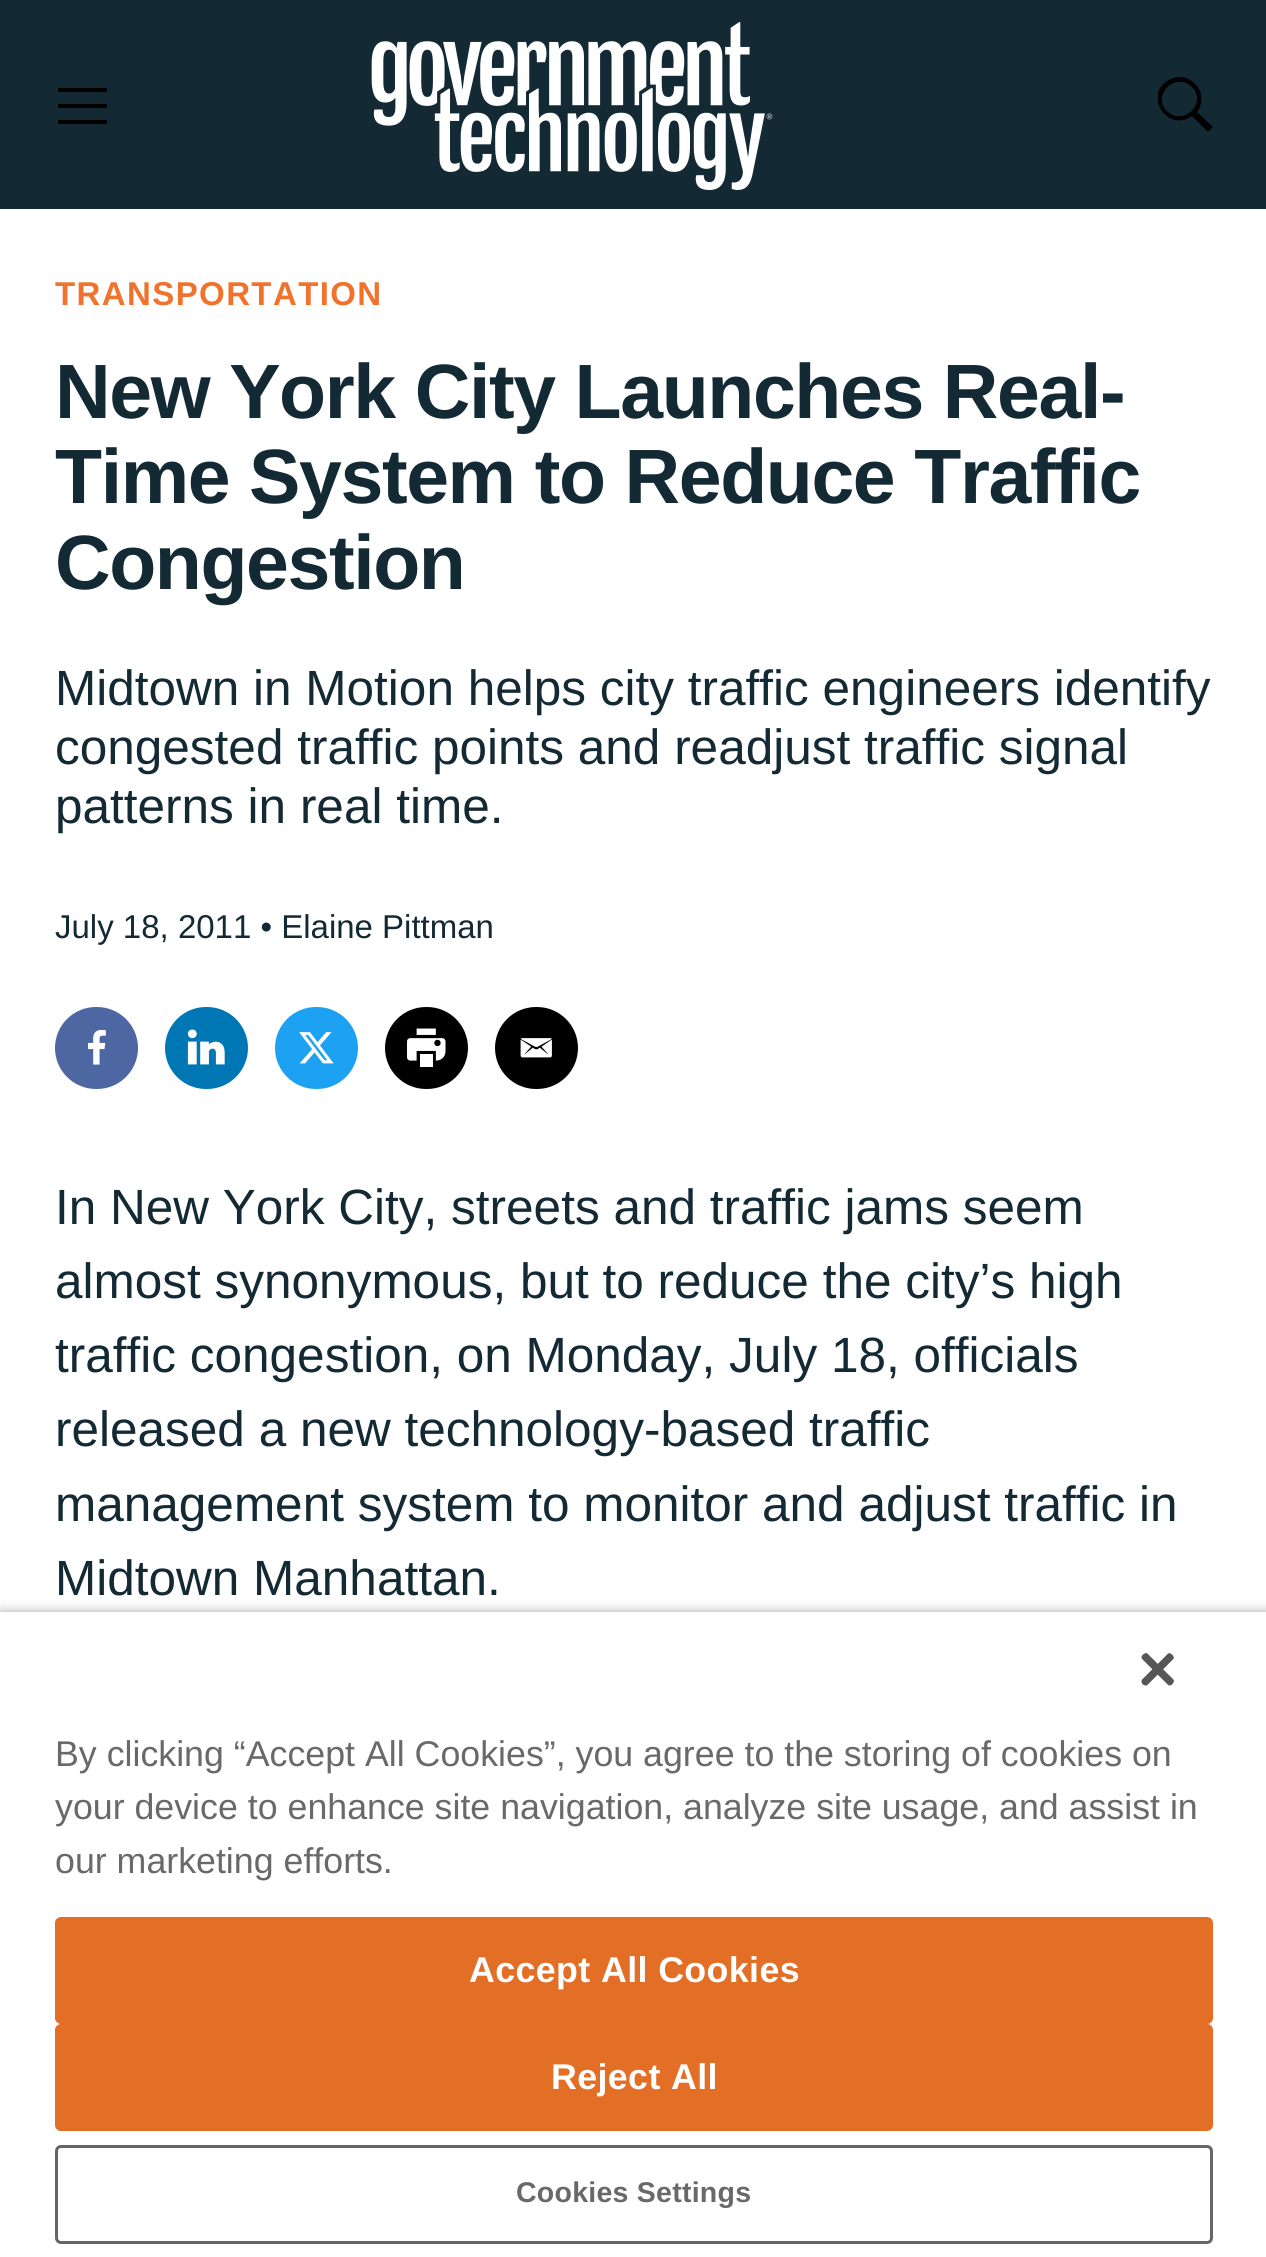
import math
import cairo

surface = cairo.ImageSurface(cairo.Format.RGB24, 1266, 2257)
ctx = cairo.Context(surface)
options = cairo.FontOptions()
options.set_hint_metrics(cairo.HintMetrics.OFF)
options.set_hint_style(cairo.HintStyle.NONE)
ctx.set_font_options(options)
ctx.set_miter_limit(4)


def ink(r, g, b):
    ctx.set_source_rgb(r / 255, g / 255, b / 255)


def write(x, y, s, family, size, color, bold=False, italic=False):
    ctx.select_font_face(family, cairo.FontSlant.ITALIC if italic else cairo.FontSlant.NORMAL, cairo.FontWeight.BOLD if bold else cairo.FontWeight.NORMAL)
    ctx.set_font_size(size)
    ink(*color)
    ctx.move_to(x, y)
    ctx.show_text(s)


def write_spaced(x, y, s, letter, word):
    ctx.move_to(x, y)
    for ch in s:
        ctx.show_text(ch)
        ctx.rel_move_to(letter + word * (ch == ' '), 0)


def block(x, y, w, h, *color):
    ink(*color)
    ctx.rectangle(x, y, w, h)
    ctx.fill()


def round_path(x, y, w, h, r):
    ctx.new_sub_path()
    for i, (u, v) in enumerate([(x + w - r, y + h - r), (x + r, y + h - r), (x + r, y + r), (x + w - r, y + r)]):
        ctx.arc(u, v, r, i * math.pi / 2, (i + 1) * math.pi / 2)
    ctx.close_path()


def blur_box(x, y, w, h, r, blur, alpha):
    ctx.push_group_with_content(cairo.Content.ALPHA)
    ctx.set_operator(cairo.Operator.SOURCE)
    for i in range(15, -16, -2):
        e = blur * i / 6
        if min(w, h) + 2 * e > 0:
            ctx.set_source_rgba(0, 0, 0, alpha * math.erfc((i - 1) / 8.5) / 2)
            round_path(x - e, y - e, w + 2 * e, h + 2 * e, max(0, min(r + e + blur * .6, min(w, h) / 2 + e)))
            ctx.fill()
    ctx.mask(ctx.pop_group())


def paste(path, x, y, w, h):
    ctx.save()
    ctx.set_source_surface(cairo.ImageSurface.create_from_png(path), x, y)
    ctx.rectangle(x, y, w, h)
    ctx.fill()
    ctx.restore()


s1 = dict(family="Liberation Sans", size=49.5, color=(19, 41, 52))
s2 = dict(family="Liberation Sans", size=33, color=(19, 41, 52))
s3 = dict(family="Liberation Sans", size=35.75, color=(105, 105, 105))

ink(255, 255, 255)
ctx.paint()
block(0, 0, 1266, 209, 19, 41, 52)
ink(0, 0, 0)
ctx.set_fill_rule(cairo.FillRule.EVEN_ODD)
ctx.new_path()
ctx.move_to(58, 108)
ctx.line_to(58, 104)
ctx.line_to(107, 104)
ctx.line_to(107, 108)
ctx.close_path()
ctx.move_to(58, 92)
ctx.line_to(58, 88)
ctx.line_to(107, 88)
ctx.line_to(107, 92)
ctx.close_path()
ctx.move_to(58, 124)
ctx.line_to(58, 120)
ctx.line_to(107, 120)
ctx.line_to(107, 124)
ctx.close_path()
ctx.fill()
paste("pic1.png", 371, 22, 402, 168)
ctx.save()
ctx.set_fill_rule(cairo.FillRule.WINDING)
ctx.rectangle(1158, 77, 55, 55)
ctx.clip()
ctx.set_fill_rule(cairo.FillRule.EVEN_ODD)
ctx.new_path()
ctx.move_to(1198, 111)
ctx.line_to(1197, 112)
ctx.line_to(1213, 127)
ctx.line_to(1208, 132)
ctx.line_to(1192, 116)
ctx.curve_to(1169, 133, 1143, 97, 1167, 81)
ctx.curve_to(1173, 77, 1180, 76, 1186, 78)
ctx.curve_to(1193, 80, 1199, 87, 1201, 94)
ctx.curve_to(1202, 100, 1201, 106, 1198, 111)
ctx.close_path()
ctx.move_to(1192, 87)
ctx.curve_to(1176, 71, 1151, 95, 1167, 111)
ctx.curve_to(1183, 127, 1208, 103, 1192, 87)
ctx.close_path()
ctx.fill()
ctx.restore()
ctx.select_font_face("Liberation Sans", cairo.FontSlant.NORMAL, cairo.FontWeight.BOLD)
ctx.set_font_size(33)
ink(241, 114, 44)
write_spaced(55, 305, "TRANSPORTATION", 1.4, 0)
ctx.set_font_size(77)
ink(19, 41, 52)
write_spaced(55, 418, "New York City Launches Real-", -1.4, 0)
write_spaced(55, 503, "Time System to Reduce Traffic", -1.4, 0)
write_spaced(55, 589, "Congestion", -1.4, 0)
write(55, 705, "Midtown in Motion helps city traffic engineers identify", **s1)
write(55, 764, "congested traffic points and readjust traffic signal", **s1)
write(55, 823, "patterns in real time.", **s1)
write(55, 938, "July 18, 2011 • Elaine Pittman", **s2)
ink(76, 103, 161)
round_path(55, 1007, 83, 82, 41)
ctx.fill()
paste("pic2.png", 88, 1029, 18, 36)
ink(0, 119, 181)
round_path(165, 1007, 83, 82, 41)
ctx.fill()
paste("pic3.png", 187, 1029, 38, 36)
ink(29, 161, 242)
round_path(275, 1007, 83, 82, 41)
ctx.fill()
paste("pic4.png", 299, 1032, 35, 32)
ink(0, 0, 0)
round_path(385, 1007, 83, 82, 41)
ctx.fill()
paste("pic5.png", 407, 1028, 39, 39)
round_path(495, 1007, 83, 82, 41)
ctx.fill()
paste("pic6.png", 520, 1038, 32, 20)
write(55, 1224, "In New York City, streets and traffic jams seem", **s1)
write(55, 1298, "almost synonymous, but to reduce the city’s high", **s1)
write(55, 1372, "traffic congestion, on Monday, July 18, officials", **s1)
write(55, 1446, "released a new technology-based traffic", **s1)
write(55, 1521, "management system to monitor and adjust traffic in", **s1)
write(55, 1595, "Midtown Manhattan.", **s1)
ink(0, 0, 0)
blur_box(0, 1612, 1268, 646, 0, 5.5, 0.35)
block(0, 1612, 1266, 645, 255, 255, 255)
paste("pic7.png", 1141, 1653, 33, 33)
write(55, 1766, "By clicking “Accept All Cookies”, you agree to the storing of cookies on", **s3)
write(55, 1819, "your device to enhance site navigation, analyze site usage, and assist in", **s3)
write(55, 1873, "our marketing efforts.", **s3)
ink(227, 110, 38)
round_path(56.5, 1918.5, 1155, 104, 4.5)
ctx.fill_preserve()
ctx.set_line_width(3)
ctx.stroke()
ctx.select_font_face("Liberation Sans", cairo.FontSlant.NORMAL, cairo.FontWeight.BOLD)
ink(255, 255, 255)
write_spaced(469, 1982, "Accept All Cookies", 0.4, 0)
ink(227, 110, 38)
round_path(56.5, 2025.5, 1155, 104, 4.5)
ctx.fill_preserve()
ctx.stroke()
ink(255, 255, 255)
write_spaced(551, 2089, "Reject All", 0.4, 0)
round_path(56.5, 2146.5, 1155, 96, 4.5)
ink(102, 102, 102)
ctx.stroke()
ctx.set_font_size(28.5)
ink(105, 105, 105)
write_spaced(516, 2202, "Cookies Settings", 0.25, 0)
surface.write_to_png("screenshot.png")
